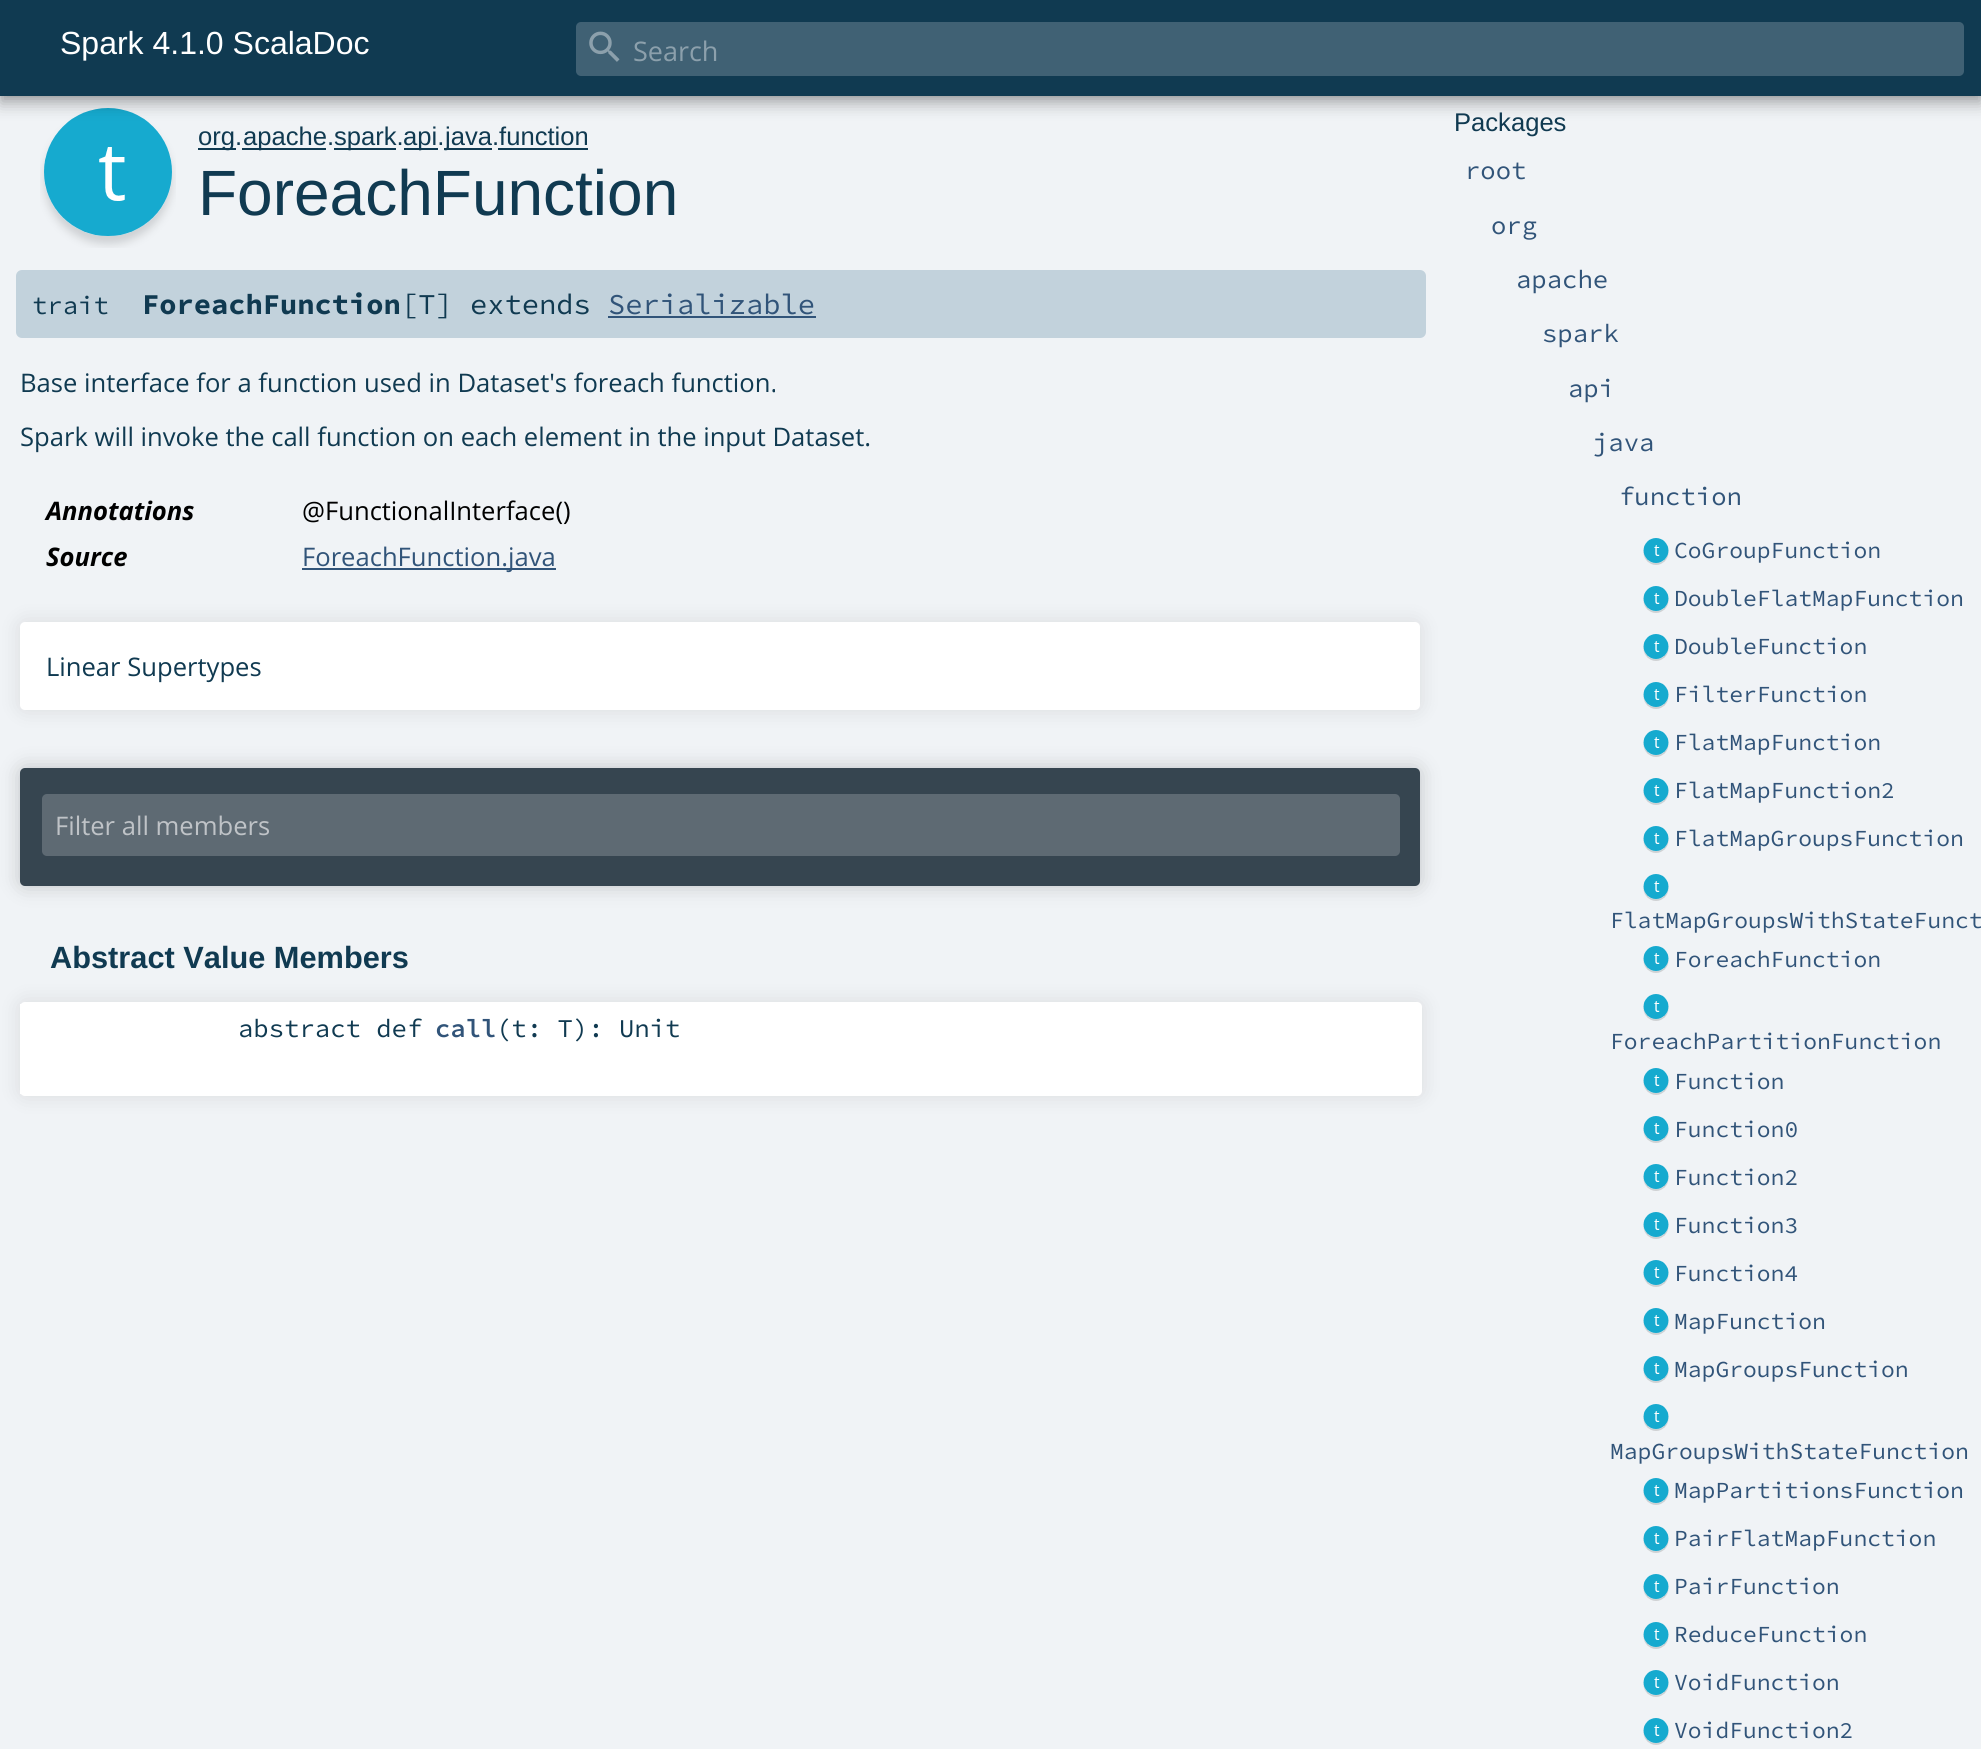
import math
import cairo

surface = cairo.ImageSurface(cairo.Format.RGB24, 1981, 1749)
ctx = cairo.Context(surface)
options = cairo.FontOptions()
options.set_hint_metrics(cairo.HintMetrics.OFF)
options.set_hint_style(cairo.HintStyle.NONE)
ctx.set_font_options(options)
ctx.set_miter_limit(4)


def ink(r, g, b):
    ctx.set_source_rgb(r / 255, g / 255, b / 255)


def write(x, y, s, family, size, color, bold=False, italic=False):
    ctx.select_font_face(family, cairo.FontSlant.ITALIC if italic else cairo.FontSlant.NORMAL, cairo.FontWeight.BOLD if bold else cairo.FontWeight.NORMAL)
    ctx.set_font_size(size)
    ink(*color)
    ctx.move_to(x, y)
    ctx.show_text(s)


def block(x, y, w, h, *color):
    ink(*color)
    ctx.rectangle(x, y, w, h)
    ctx.fill()


def round_path(x, y, w, h, r):
    ctx.new_sub_path()
    for i, (u, v) in enumerate([(x + w - r, y + h - r), (x + r, y + h - r), (x + r, y + r), (x + w - r, y + r)]):
        ctx.arc(u, v, r, i * math.pi / 2, (i + 1) * math.pi / 2)
    ctx.close_path()


def blur_box(x, y, w, h, r, blur, alpha):
    ctx.push_group_with_content(cairo.Content.ALPHA)
    ctx.set_operator(cairo.Operator.SOURCE)
    for i in range(15, -16, -2):
        e = blur * i / 6
        if min(w, h) + 2 * e > 0:
            ctx.set_source_rgba(0, 0, 0, alpha * math.erfc((i - 1) / 8.5) / 2)
            round_path(x - e, y - e, w + 2 * e, h + 2 * e, max(0, min(r + e + blur * .6, min(w, h) / 2 + e)))
            ctx.fill()
    ctx.mask(ctx.pop_group())


def paste(path, x, y, w, h):
    ctx.save()
    ctx.set_source_surface(cairo.ImageSurface.create_from_png(path), x, y)
    ctx.rectangle(x, y, w, h)
    ctx.fill()
    ctx.restore()


s1 = dict(family="Liberation Sans", size=32, color=(255, 255, 255))
s2 = dict(family="Open Sans", size=27, color=(140, 160, 172))
s3 = dict(family="Liberation Sans", size=25.6, color=(16, 58, 81))
s4 = dict(family="Liberation Sans", size=64, color=(16, 58, 81))
s5 = dict(family="Source Code Pro", size=25.6, color=(16, 58, 81))
s6 = dict(family="Source Code Pro", size=28.75, color=(16, 58, 81), bold=True)
s7 = dict(family="Source Code Pro", size=28.75, color=(16, 58, 81))
s8 = dict(family="Source Code Pro", size=28.75, color=(49, 84, 121))
s9 = dict(family="Open Sans", size=25.6, color=(16, 58, 81))
s10 = dict(family="Open Sans", size=25.6, color=(0, 0, 0), bold=True, italic=True)
s11 = dict(family="Open Sans", size=25.6, color=(0, 0, 0))
s12 = dict(family="Open Sans", size=25.6, color=(49, 84, 121))
s13 = dict(family="Open Sans", size=25.6, color=(191, 195, 199))
s14 = dict(family="Liberation Sans", size=30.75, color=(16, 58, 81), bold=True)
s15 = dict(family="Source Code Pro SemiBold", size=25.6, color=(49, 84, 121))
s16 = dict(family="Source Code Pro", size=25.6, color=(49, 84, 121))
s17 = dict(family="Source Code Pro", size=23, color=(49, 84, 121))

ink(240, 243, 246)
ctx.paint()
paste("pic2.png", 40, 108, 136, 140)
ink(0, 0, 0)
blur_box(0, 8, 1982, 96, 0, 8, 0.28)
blur_box(0, 0, 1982, 96, 0, 4, 0.18)
block(0, 0, 1981, 96, 16, 58, 81)
write(60, 54, "Spark 4.1.0 ScalaDoc", **s1)
ink(64, 97, 116)
round_path(576, 22, 1388, 54, 5)
ctx.fill()
paste("pic1.png", 589, 31, 31, 31)
write(633, 61, "Search", **s2)
block(198, 148, 38, 2, 16, 58, 81)
write(198, 145, "org.", **s3)
block(242, 148, 84, 2, 16, 58, 81)
write(243, 145, "apache.", **s3)
block(334, 148, 62, 2, 16, 58, 81)
write(334, 145, "spark.", **s3)
block(404, 148, 34, 2, 16, 58, 81)
write(403, 145, "api.", **s3)
block(444, 148, 48, 2, 16, 58, 81)
write(445, 145, "java.function", **s3)
block(498, 148, 90, 2, 16, 58, 81)
write(198, 215, "ForeachFunction", **s4)
ink(194, 210, 220)
round_path(16, 270, 1410, 68, 6)
ctx.fill()
write(32, 314, "trait", **s5)
write(142, 314, "ForeachFunction", **s6)
write(401, 314, "[T] extends", **s7)
write(608, 314, "Serializable", **s8)
block(608, 316, 208, 2, 49, 84, 121)
write(20, 392, "Base interface for a function used in Dataset's foreach function.", **s9)
write(20, 446, "Spark will invoke the call function on each element in the input Dataset.", **s9)
write(46, 520, "Annotations", **s10)
write(302, 520, "@FunctionalInterface()", **s11)
write(46, 566, "Source", **s10)
block(302, 568, 254, 2, 49, 84, 121)
write(302, 566, "ForeachFunction.java", **s12)
ink(0, 0, 0)
blur_box(20, 622, 1400, 88, 5, 10, 0.1)
ink(255, 255, 255)
round_path(20, 622, 1400, 88, 5)
ctx.fill()
write(46, 676, "Linear Supertypes", **s9)
ink(0, 0, 0)
blur_box(20, 768, 1400, 118, 5, 10, 0.2)
ink(54, 69, 80)
round_path(20, 768, 1400, 118, 5)
ctx.fill()
ink(94, 106, 115)
round_path(42, 794, 1358, 62, 5)
ctx.fill()
write(55, 835, "Filter all members", **s13)
write(50, 968, "Abstract Value Members", **s14)
ink(0, 0, 0)
blur_box(20, 1002, 1402, 94, 5, 10, 0.1)
ink(255, 255, 255)
round_path(20, 1002, 1402, 94, 5)
ctx.fill()
block(20, 1004, 1, 90, 255, 255, 255)
write(238, 1037, "abstract def", **s5)
write(435, 1037, "call", **s15)
write(496, 1037, "(t: T): Unit", **s5)
write(1454, 131, "Packages", **s3)
write(1465, 179, "root", **s16)
write(1491, 234, "org", **s16)
write(1516, 288, "apache", **s16)
write(1542, 342, "spark", **s16)
write(1568, 397, "api", **s16)
write(1593, 451, "java", **s16)
write(1619, 505, "function", **s16)
paste("pic3.png", 1643, 538, 26, 27)
write(1674, 558, "CoGroupFunction", **s17)
paste("pic3.png", 1643, 586, 26, 27)
write(1674, 606, "DoubleFlatMapFunction", **s17)
paste("pic3.png", 1643, 634, 26, 27)
write(1674, 654, "DoubleFunction", **s17)
paste("pic3.png", 1643, 682, 26, 27)
write(1674, 702, "FilterFunction", **s17)
paste("pic3.png", 1643, 730, 26, 27)
write(1674, 750, "FlatMapFunction", **s17)
paste("pic3.png", 1643, 778, 26, 27)
write(1674, 798, "FlatMapFunction2", **s17)
paste("pic3.png", 1643, 826, 26, 27)
write(1674, 846, "FlatMapGroupsFunction", **s17)
paste("pic3.png", 1643, 874, 26, 27)
write(1610, 928, "FlatMapGroupsWithStateFunct", **s17)
paste("pic4.png", 1643, 946, 26, 27)
write(1674, 967, "ForeachFunction", **s17)
paste("pic3.png", 1643, 994, 26, 27)
write(1610, 1049, "ForeachPartitionFunction", **s17)
paste("pic3.png", 1643, 1068, 26, 27)
write(1674, 1089, "Function", **s17)
paste("pic3.png", 1643, 1116, 26, 27)
write(1674, 1137, "Function0", **s17)
paste("pic3.png", 1643, 1164, 26, 27)
write(1674, 1185, "Function2", **s17)
paste("pic3.png", 1643, 1212, 26, 27)
write(1674, 1233, "Function3", **s17)
paste("pic3.png", 1643, 1260, 26, 27)
write(1674, 1281, "Function4", **s17)
paste("pic3.png", 1643, 1308, 26, 27)
write(1674, 1329, "MapFunction", **s17)
paste("pic3.png", 1643, 1356, 26, 27)
write(1674, 1377, "MapGroupsFunction", **s17)
paste("pic3.png", 1643, 1404, 26, 27)
write(1610, 1459, "MapGroupsWithStateFunction", **s17)
paste("pic3.png", 1643, 1478, 26, 27)
write(1674, 1498, "MapPartitionsFunction", **s17)
paste("pic3.png", 1643, 1526, 26, 27)
write(1674, 1546, "PairFlatMapFunction", **s17)
paste("pic3.png", 1643, 1574, 26, 27)
write(1674, 1594, "PairFunction", **s17)
paste("pic3.png", 1643, 1622, 26, 27)
write(1674, 1642, "ReduceFunction", **s17)
paste("pic3.png", 1643, 1670, 26, 27)
write(1674, 1690, "VoidFunction", **s17)
paste("pic3.png", 1643, 1718, 26, 27)
write(1674, 1738, "VoidFunction2", **s17)
surface.write_to_png("screenshot.png")
